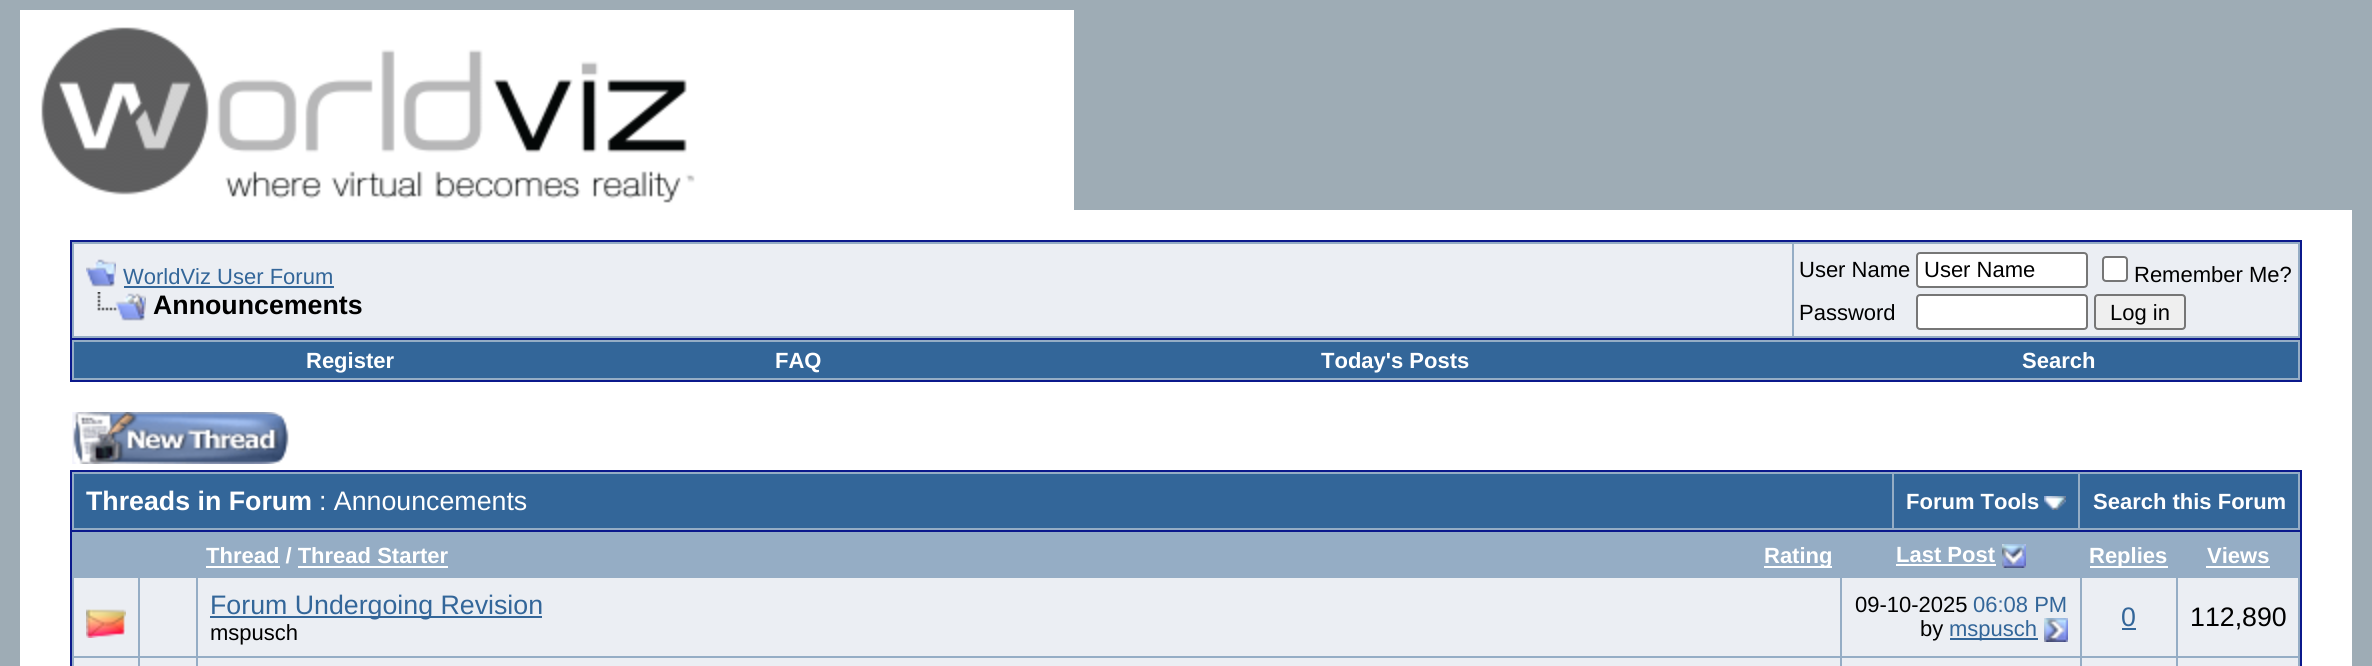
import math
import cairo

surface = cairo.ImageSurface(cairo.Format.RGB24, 2372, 666)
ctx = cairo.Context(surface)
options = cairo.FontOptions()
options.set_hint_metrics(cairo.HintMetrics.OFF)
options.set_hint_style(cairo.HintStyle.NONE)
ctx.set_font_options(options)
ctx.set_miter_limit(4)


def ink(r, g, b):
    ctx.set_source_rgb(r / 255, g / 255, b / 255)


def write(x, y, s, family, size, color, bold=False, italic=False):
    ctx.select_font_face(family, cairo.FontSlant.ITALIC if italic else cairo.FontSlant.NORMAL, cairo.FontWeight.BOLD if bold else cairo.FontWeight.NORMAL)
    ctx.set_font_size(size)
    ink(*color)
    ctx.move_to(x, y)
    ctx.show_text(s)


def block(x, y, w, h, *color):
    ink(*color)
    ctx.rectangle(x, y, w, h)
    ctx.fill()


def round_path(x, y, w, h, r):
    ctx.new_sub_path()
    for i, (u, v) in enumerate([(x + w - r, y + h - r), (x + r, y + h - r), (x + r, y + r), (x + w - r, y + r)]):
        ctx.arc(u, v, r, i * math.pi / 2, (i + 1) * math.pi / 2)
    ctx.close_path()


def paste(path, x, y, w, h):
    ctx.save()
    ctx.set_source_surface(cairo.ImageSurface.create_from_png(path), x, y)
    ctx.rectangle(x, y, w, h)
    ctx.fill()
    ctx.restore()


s1 = dict(family="Liberation Sans", size=22, color=(51, 102, 153))
s2 = dict(family="Liberation Sans", size=26.75, color=(0, 0, 0), bold=True)
s3 = dict(family="Liberation Sans", size=22, color=(0, 0, 0))
s4 = dict(family="Liberation Sans", size=22, color=(255, 255, 255), bold=True)
s5 = dict(family="Liberation Sans", size=26.75, color=(255, 255, 255), bold=True)
s6 = dict(family="Liberation Sans", size=26.75, color=(255, 255, 255))
s7 = dict(family="Liberation Sans", size=26.75, color=(51, 102, 153))
s8 = dict(family="Liberation Sans", size=26.75, color=(0, 0, 0))

ink(158, 172, 181)
ctx.paint()
paste("pic1.png", 20, 10, 1054, 200)
block(20, 210, 2332, 456, 255, 255, 255)
ink(149, 173, 197)
ctx.rectangle(71, 241, 2230, 98)
ctx.fill_preserve()
ink(11, 25, 140)
ctx.stroke()
block(74, 244, 1718, 92, 235, 238, 243)
paste("pic2.png", 86, 259, 30, 28)
write(123, 284, "WorldViz User Forum", **s1)
block(124, 286, 210, 2, 51, 102, 153)
paste("pic3.png", 97, 292, 49, 29)
write(153, 314, "Announcements", **s2)
block(1794, 244, 504, 92, 235, 238, 243)
write(1799, 277, "User Name", **s3)
ink(255, 255, 255)
round_path(1917, 253, 170, 34, 3)
ctx.fill_preserve()
ink(118, 118, 118)
ctx.stroke()
write(1924, 277, "User Name", **s3)
ink(255, 255, 255)
round_path(2103, 257, 24, 24, 3)
ctx.fill_preserve()
ink(118, 118, 118)
ctx.stroke()
write(2134, 282, "Remember Me?", **s3)
write(1799, 320, "Password", **s3)
ink(255, 255, 255)
round_path(1917, 295, 170, 34, 3)
ctx.fill_preserve()
ink(118, 118, 118)
ctx.stroke()
ink(239, 239, 239)
round_path(2095, 295, 90, 34, 3)
ctx.fill_preserve()
ink(118, 118, 118)
ctx.stroke()
write(2110, 320, "Log in", **s3)
block(72, 340, 2228, 40, 149, 173, 197)
block(2300, 340, 2, 42, 11, 25, 140)
block(70, 380, 2232, 2, 11, 25, 140)
block(70, 340, 2, 42, 11, 25, 140)
block(74, 342, 2224, 36, 51, 102, 153)
write(306, 368, "Register", **s4)
write(775, 368, "FAQ", **s4)
write(1321, 368, "Today's Posts", **s4)
write(2022, 368, "Search", **s4)
paste("pic4.png", 72, 412, 217, 52)
block(72, 472, 2228, 58, 149, 173, 197)
block(70, 470, 2232, 2, 11, 25, 140)
block(2300, 470, 2, 60, 11, 25, 140)
block(70, 470, 2, 60, 11, 25, 140)
block(74, 474, 1818, 54, 51, 102, 153)
write(86, 510, "Threads in Forum", **s5)
write(319, 510, ": Announcements", **s6)
block(1894, 474, 184, 54, 51, 102, 153)
write(1906, 509, "Forum Tools", **s4)
paste("pic5.png", 2044, 496, 22, 14)
block(2080, 474, 218, 54, 51, 102, 153)
write(2093, 509, "Search this Forum", **s4)
ink(149, 173, 197)
ctx.rectangle(71, 531, 2230, 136)
ctx.fill_preserve()
ink(11, 25, 140)
ctx.stroke()
write(206, 563, "Thread / Thread Starter", **s4)
block(206, 566, 74, 2, 255, 255, 255)
block(1764, 566, 68, 2, 255, 255, 255)
write(1764, 563, "Rating", **s4)
block(298, 566, 150, 2, 255, 255, 255)
write(1896, 562, "Last Post", **s4)
block(1896, 564, 100, 2, 255, 255, 255)
paste("pic6.png", 2002, 544, 24, 24)
block(2090, 566, 78, 2, 255, 255, 255)
write(2089, 563, "Replies", **s4)
write(2207, 563, "Views", **s4)
block(2206, 566, 64, 2, 255, 255, 255)
block(74, 578, 64, 78, 235, 238, 243)
paste("pic7.png", 86, 609, 40, 29)
block(140, 578, 56, 78, 235, 238, 243)
block(198, 578, 1642, 78, 235, 238, 243)
block(210, 616, 332, 2, 51, 102, 153)
write(210, 614, "Forum Undergoing Revision", **s7)
write(210, 640, "mspusch", **s3)
block(1842, 578, 238, 78, 235, 238, 243)
write(1855, 612, "09-10-2025", **s3)
write(1973, 612, "06:08 PM", **s1)
write(1920, 636, "by", **s3)
block(1950, 638, 88, 2, 51, 102, 153)
write(1949, 636, "mspusch", **s1)
paste("pic8.png", 2044, 618, 24, 24)
block(2082, 578, 94, 78, 235, 238, 243)
write(2121, 626, "0", **s7)
block(2122, 628, 14, 2, 51, 102, 153)
block(2178, 578, 120, 78, 235, 238, 243)
write(2190, 626, "112,890", **s8)
block(74, 658, 64, 8, 235, 238, 243)
block(140, 658, 56, 8, 235, 238, 243)
block(198, 658, 1642, 8, 235, 238, 243)
block(1842, 658, 238, 8, 235, 238, 243)
block(2082, 658, 94, 8, 235, 238, 243)
block(2178, 658, 120, 8, 235, 238, 243)
surface.write_to_png("screenshot.png")
